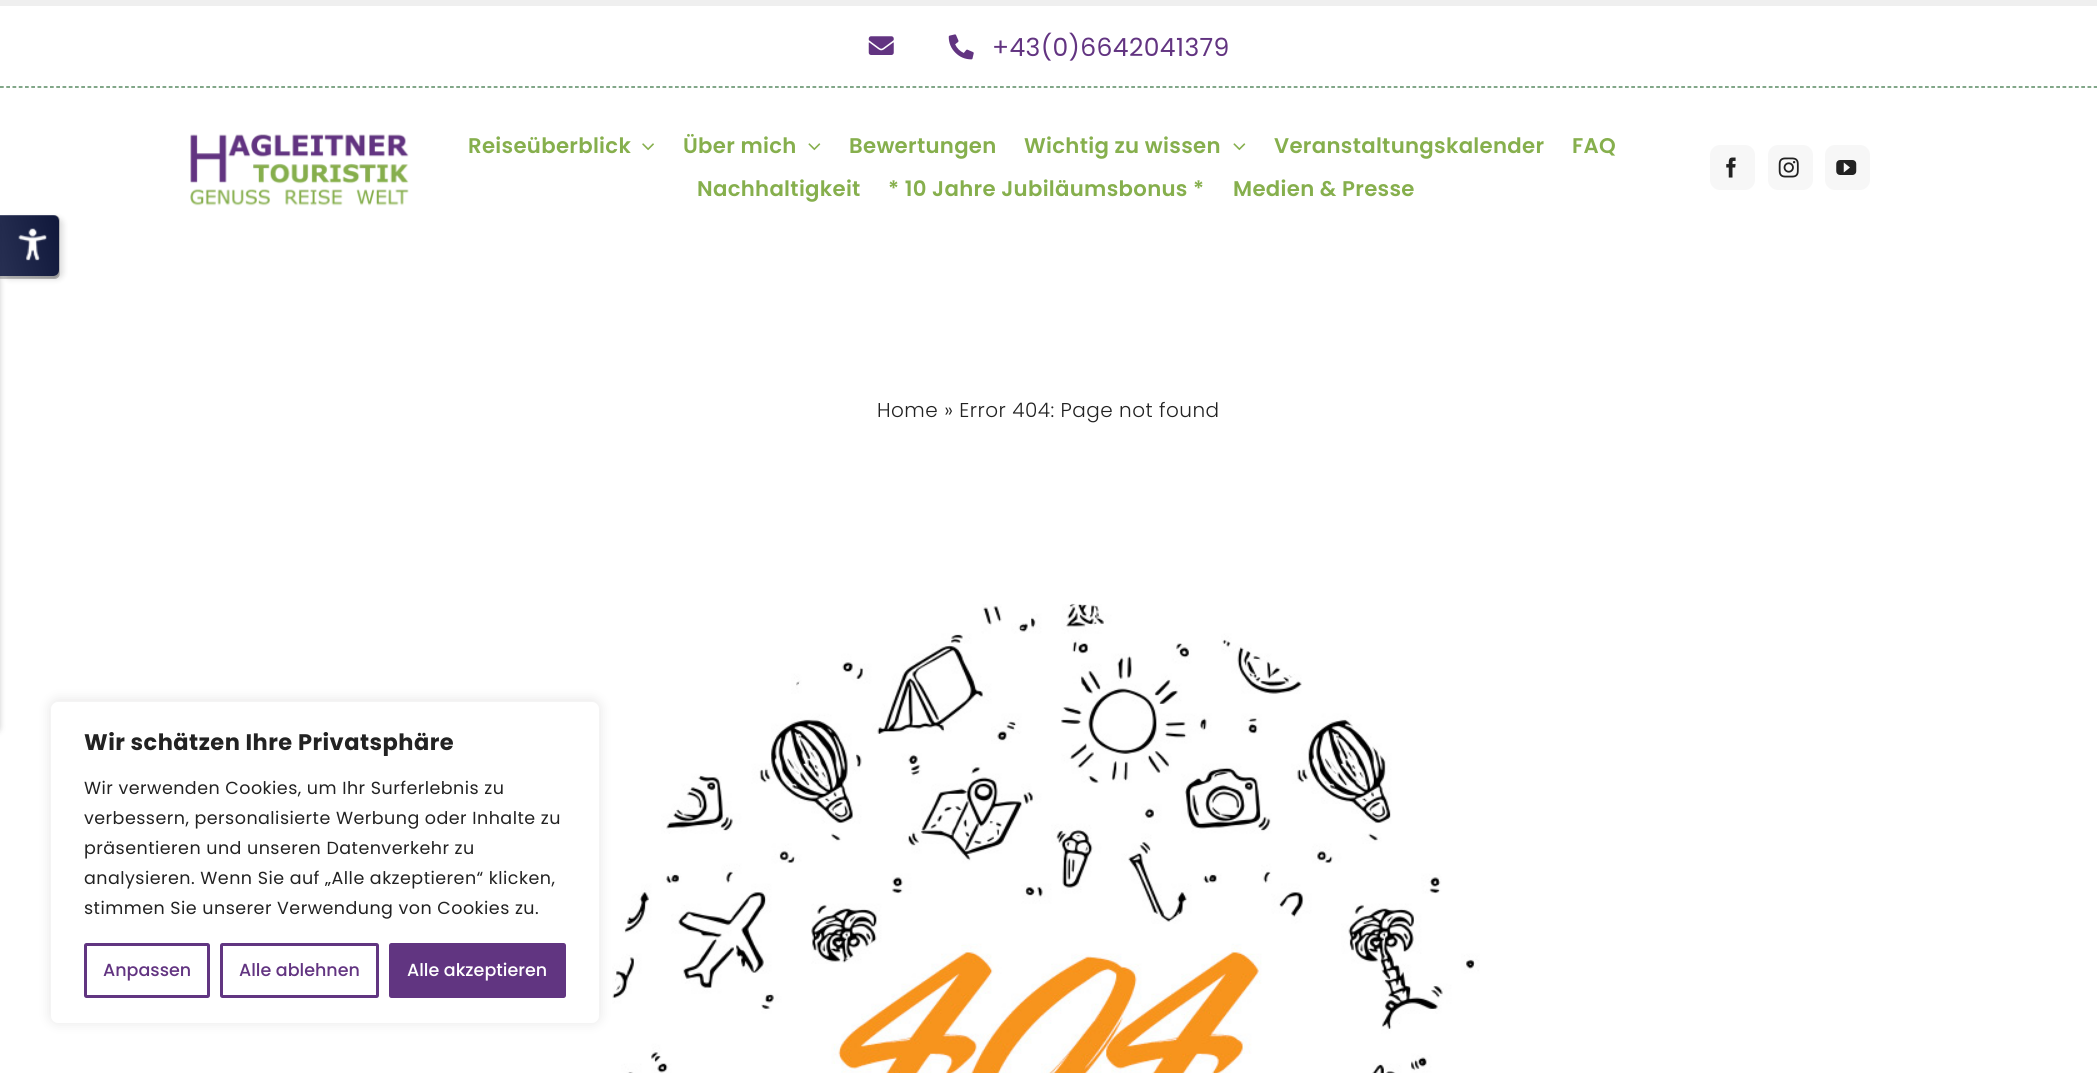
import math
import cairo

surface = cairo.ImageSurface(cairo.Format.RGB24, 2097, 1073)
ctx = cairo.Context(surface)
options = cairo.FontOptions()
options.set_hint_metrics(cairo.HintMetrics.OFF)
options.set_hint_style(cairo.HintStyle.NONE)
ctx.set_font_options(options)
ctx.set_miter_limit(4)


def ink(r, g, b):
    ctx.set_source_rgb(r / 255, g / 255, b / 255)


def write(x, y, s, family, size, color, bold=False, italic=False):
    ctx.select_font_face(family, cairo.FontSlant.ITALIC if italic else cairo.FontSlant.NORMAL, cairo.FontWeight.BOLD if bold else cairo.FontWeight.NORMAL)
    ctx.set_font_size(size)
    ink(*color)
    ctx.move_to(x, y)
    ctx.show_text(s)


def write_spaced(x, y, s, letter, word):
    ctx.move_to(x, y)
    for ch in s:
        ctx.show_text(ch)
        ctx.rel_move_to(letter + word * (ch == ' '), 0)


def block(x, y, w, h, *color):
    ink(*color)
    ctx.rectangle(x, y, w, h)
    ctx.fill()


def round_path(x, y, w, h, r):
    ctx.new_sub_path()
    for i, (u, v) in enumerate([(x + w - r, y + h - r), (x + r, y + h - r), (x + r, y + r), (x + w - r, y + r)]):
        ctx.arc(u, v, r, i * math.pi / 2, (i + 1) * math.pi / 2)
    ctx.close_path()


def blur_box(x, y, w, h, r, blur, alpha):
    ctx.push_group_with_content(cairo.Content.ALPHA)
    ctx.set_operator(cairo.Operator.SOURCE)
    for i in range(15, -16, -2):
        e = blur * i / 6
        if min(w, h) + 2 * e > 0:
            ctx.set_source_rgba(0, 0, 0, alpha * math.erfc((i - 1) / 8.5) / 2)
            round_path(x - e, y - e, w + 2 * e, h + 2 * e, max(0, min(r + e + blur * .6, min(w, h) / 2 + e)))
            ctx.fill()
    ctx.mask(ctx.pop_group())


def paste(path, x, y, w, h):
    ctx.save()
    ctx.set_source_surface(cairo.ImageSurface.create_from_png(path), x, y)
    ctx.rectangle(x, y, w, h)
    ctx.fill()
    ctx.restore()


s1 = dict(family="Poppins Medium", size=17.5, color=(98, 52, 129))
s2 = dict(family="Poppins Medium", size=17.5, color=(255, 255, 255))

ink(239, 239, 239)
ctx.paint()
block(0, 6, 2097, 1067, 255, 255, 255)
ctx.save()
ctx.set_fill_rule(cairo.FillRule.EVEN_ODD)
ctx.new_path()
ctx.move_to(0, 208)
ctx.line_to(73, 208)
ctx.line_to(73, 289)
ctx.line_to(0, 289)
ctx.close_path()
ctx.move_to(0, 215)
ctx.line_to(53, 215)
ctx.curve_to(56.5, 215, 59, 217.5, 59, 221)
ctx.line_to(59, 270)
ctx.curve_to(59, 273.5, 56.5, 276, 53, 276)
ctx.line_to(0, 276)
ctx.close_path()
ctx.clip()
ink(0, 0, 0)
blur_box(4, 218, 59, 61, 6, 3, 0.14)
ctx.restore()
ink(0, 1, 1)
blur_box(-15, 221, 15, 512, 6, 3, 0.2)
ctx.set_source_rgba(0.051, 0.106, 0.322, 0.95)
ctx.new_path()
ctx.move_to(0, 215)
ctx.line_to(53, 215)
ctx.curve_to(56.5, 215, 59, 217.5, 59, 221)
ctx.line_to(59, 270)
ctx.curve_to(59, 273.5, 56.5, 276, 53, 276)
ctx.line_to(0, 276)
ctx.close_path()
ctx.fill()
ctx.save()
ctx.new_path()
ctx.move_to(0, 215)
ctx.line_to(54, 215)
ctx.curve_to(57.5, 215, 60, 217.5, 60, 221)
ctx.line_to(60, 273)
ctx.curve_to(60, 276.5, 57.5, 279, 54, 279)
ctx.line_to(0, 279)
ctx.close_path()
ctx.clip()
gradient = cairo.LinearGradient(64, 176, -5.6, 195)
gradient.add_color_stop_rgba(0.01, 0, 0, 0, 0.35)
gradient.add_color_stop_rgba(0.98, 0.263, 0.263, 0.263, 0.35)
ctx.set_source(gradient)
ctx.rectangle(0, 215, 59, 1)
ctx.fill()
gradient = cairo.LinearGradient(64, 238, -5.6, 256)
gradient.add_color_stop_rgba(0.01, 0, 0, 0, 0.35)
gradient.add_color_stop_rgba(0.98, 0.263, 0.263, 0.263, 0.35)
ctx.set_source(gradient)
ctx.rectangle(0, 216, 59, 62)
ctx.fill()
gradient = cairo.LinearGradient(123, 238, 53, 256)
gradient.add_color_stop_rgba(0.01, 0, 0, 0, 0.35)
gradient.add_color_stop_rgba(0.98, 0.263, 0.263, 0.263, 0.35)
ctx.set_source(gradient)
ctx.rectangle(59, 216, 1, 62)
ctx.fill()
gradient = cairo.LinearGradient(64, 299, -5.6, 317)
gradient.add_color_stop_rgba(0.01, 0, 0, 0, 0.35)
gradient.add_color_stop_rgba(0.98, 0.263, 0.263, 0.263, 0.35)
ctx.set_source(gradient)
ctx.rectangle(0, 278, 59, 1)
ctx.fill()
ctx.restore()
ctx.set_source_rgba(1, 1, 1, 0.17)
ctx.set_fill_rule(cairo.FillRule.EVEN_ODD)
ctx.new_path()
ctx.move_to(0, 215)
ctx.line_to(54, 215)
ctx.curve_to(57, 215, 60, 218, 60, 221)
ctx.line_to(60, 272)
ctx.curve_to(60, 276, 57, 279, 54, 279)
ctx.line_to(0, 279)
ctx.close_path()
ctx.move_to(0, 216)
ctx.line_to(54, 216)
ctx.curve_to(57, 216, 59, 218, 59, 221)
ctx.line_to(59, 272)
ctx.curve_to(59, 275, 57, 278, 54, 278)
ctx.line_to(0, 278)
ctx.close_path()
ctx.fill()
paste("pic1.png", 18, 228, 29, 33)
ctx.new_path()
ctx.move_to(0, 87)
ctx.line_to(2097.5, 87)
ink(48, 110, 60)
ctx.set_line_width(1.2)
ctx.set_dash([3.75, 2.5])
ctx.stroke()
paste("pic2.png", 868, 36, 26, 19)
paste("pic3.png", 948, 34, 26, 26)
ctx.select_font_face("Poppins")
ctx.set_font_size(25)
ink(98, 52, 129)
write_spaced(992, 56, "+43(0)6642041379", 0.4, 0)
paste("pic4.png", 190, 134, 219, 72)
ctx.select_font_face("Poppins SemiBold")
ctx.set_font_size(21.25)
ink(134, 175, 77)
write_spaced(468, 153, "Reiseüberblick", 0.3, 0)
paste("pic5.png", 642, 143, 12, 8)
write_spaced(683, 153, "Über mich", 0.3, 0)
paste("pic6.png", 808, 143, 13, 8)
write_spaced(849, 153, "Bewertungen", 0.3, 0)
write_spaced(1024, 153, "Wichtig zu wissen", 0.3, 0)
paste("pic6.png", 1233, 143, 13, 8)
write_spaced(1274, 153, "Veranstaltungskalender", 0.3, 0)
write_spaced(1572, 153, "FAQ", 0.3, 0)
write_spaced(697, 196, "Nachhaltigkeit", 0.3, 0)
write_spaced(888, 196, "* 10 Jahre Jubiläumsbonus *", 0.3, 0)
write_spaced(1233, 196, "Medien & Presse", 0.3, 0)
ink(247, 247, 247)
round_path(1710, 145, 45, 45, 10)
ctx.fill()
paste("pic7.png", 1726, 157, 10, 21)
round_path(1768, 145, 45, 45, 10)
ctx.fill()
paste("pic8.png", 1778, 157, 21, 21)
round_path(1825, 145, 45, 45, 10)
ctx.fill()
paste("pic9.png", 1836, 160, 21, 15)
ctx.select_font_face("Poppins Light")
ctx.set_font_size(20)
ink(34, 34, 34)
write_spaced(877, 417, "Home » Error 404: Page not found", 0.47, 0)
paste("pic10.png", 612, 603, 868, 470)
ink(172, 171, 171)
blur_box(50, 700, 550, 323, 8, 6, 0.3)
ink(255, 255, 255)
round_path(50.5, 701.5, 549, 322, 7.5)
ctx.fill_preserve()
ink(244, 244, 244)
ctx.set_line_width(1)
ctx.set_dash([])
ctx.stroke()
ctx.select_font_face("Poppins", cairo.FontSlant.NORMAL, cairo.FontWeight.BOLD)
ctx.set_font_size(22.5)
ink(34, 34, 34)
write_spaced(84, 750, "Wir schätzen Ihre Privatsphäre", 0.47, 0)
ctx.select_font_face("Poppins")
ctx.set_font_size(17.5)
write_spaced(84, 794, "Wir verwenden Cookies, um Ihr Surferlebnis zu", 0.47, 0)
write_spaced(84, 824, "verbessern, personalisierte Werbung oder Inhalte zu", 0.47, 0)
write_spaced(84, 854, "präsentieren und unseren Datenverkehr zu", 0.47, 0)
write_spaced(84, 884, "analysieren. Wenn Sie auf „Alle akzeptieren“ klicken,", 0.47, 0)
write_spaced(84, 914, "stimmen Sie unserer Verwendung von Cookies zu.", 0.47, 0)
round_path(85.5, 944.5, 123, 52, 1)
ink(97, 53, 129)
ctx.set_line_width(3)
ctx.stroke()
write(103, 976, "Anpassen", **s1)
round_path(221.5, 944.5, 156, 52, 1)
ink(97, 53, 129)
ctx.stroke()
write(239, 976, "Alle ablehnen", **s1)
ink(97, 53, 129)
round_path(390.5, 944.5, 174, 52, 1)
ctx.fill_preserve()
ctx.stroke()
write(407, 976, "Alle akzeptieren", **s2)
surface.write_to_png("screenshot.png")
